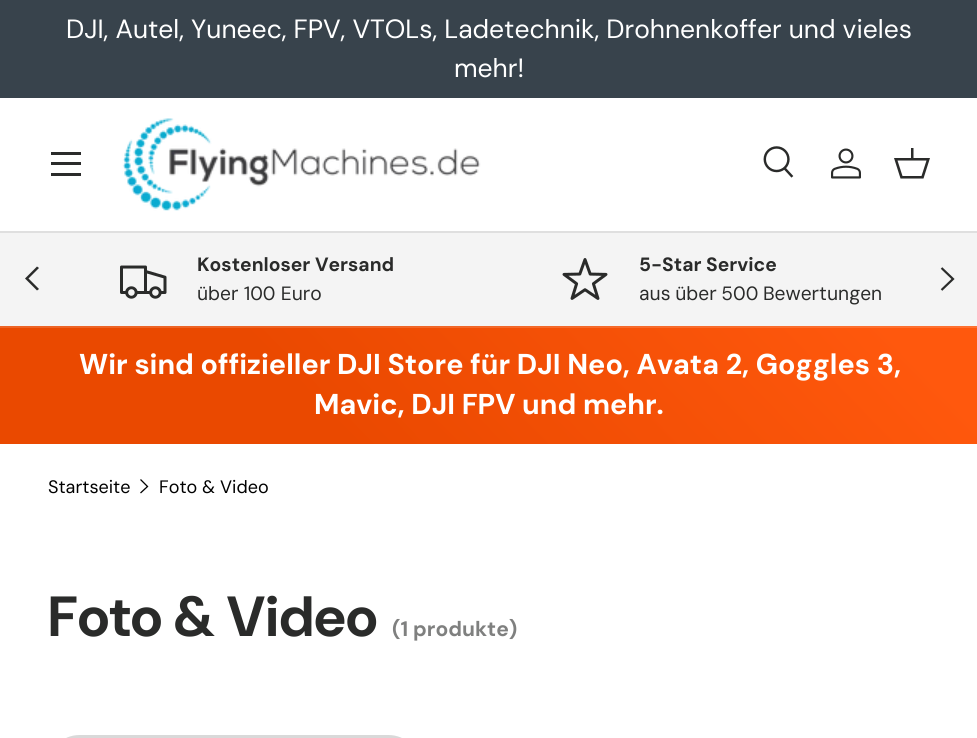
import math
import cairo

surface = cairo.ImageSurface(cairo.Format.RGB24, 977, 738)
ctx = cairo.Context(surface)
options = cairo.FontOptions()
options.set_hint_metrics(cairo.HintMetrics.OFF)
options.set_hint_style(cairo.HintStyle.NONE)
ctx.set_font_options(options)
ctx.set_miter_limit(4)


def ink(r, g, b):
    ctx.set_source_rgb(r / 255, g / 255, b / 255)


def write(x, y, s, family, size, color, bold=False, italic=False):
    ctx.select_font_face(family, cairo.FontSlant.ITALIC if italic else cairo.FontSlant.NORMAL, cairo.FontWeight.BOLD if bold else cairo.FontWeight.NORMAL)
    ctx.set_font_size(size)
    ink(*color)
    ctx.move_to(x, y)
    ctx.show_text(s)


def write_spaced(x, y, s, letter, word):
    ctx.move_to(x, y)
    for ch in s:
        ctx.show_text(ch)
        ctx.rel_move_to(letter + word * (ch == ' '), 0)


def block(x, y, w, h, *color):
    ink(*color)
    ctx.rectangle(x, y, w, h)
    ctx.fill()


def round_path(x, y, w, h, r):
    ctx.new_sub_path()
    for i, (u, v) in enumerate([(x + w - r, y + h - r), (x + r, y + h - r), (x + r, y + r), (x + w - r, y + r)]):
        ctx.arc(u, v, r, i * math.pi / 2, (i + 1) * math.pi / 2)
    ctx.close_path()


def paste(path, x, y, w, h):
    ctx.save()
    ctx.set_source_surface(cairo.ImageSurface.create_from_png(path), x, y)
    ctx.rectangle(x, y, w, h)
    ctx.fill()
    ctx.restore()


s1 = dict(family="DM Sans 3", size=26.4, color=(255, 255, 255))
s2 = dict(family="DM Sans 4", size=19.25, color=(42, 43, 42), bold=True)
s3 = dict(family="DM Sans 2", size=19.25, color=(42, 43, 42))
s4 = dict(family="DM Sans", size=28.7, color=(255, 255, 255), bold=True)
s5 = dict(family="DM Sans", size=18, color=(0, 0, 0))
s6 = dict(family="DM Sans 2", size=56.5, color=(42, 43, 42), bold=True)
s7 = dict(family="DM Sans 3", size=21, color=(127, 128, 127), bold=True)

ink(255, 255, 255)
ctx.paint()
block(0, 0, 977, 98, 56, 67, 76)
write(66, 38, "DJI, Autel, Yuneec, FPV, VTOLs, Ladetechnik, Drohnenkoffer und vieles", **s1)
write(454, 77, "mehr!", **s1)
block(0, 231, 977, 2, 223, 223, 223)
block(51, 152, 30, 3, 42, 43, 42)
block(51, 173, 30, 3, 42, 43, 42)
block(51, 162, 30, 3, 42, 43, 42)
paste("pic1.png", 122, 118, 359, 93)
paste("pic2.png", 763, 146, 31, 32)
paste("pic3.png", 831, 148, 30, 31)
ctx.new_path()
ctx.move_to(911, 158)
ctx.line_to(911, 148)
ctx.line_to(913.5, 148)
ctx.line_to(913.5, 158)
ctx.line_to(930, 158)
ctx.line_to(923.5, 178.5)
ctx.line_to(900.5, 178.5)
ctx.line_to(894, 158)
ctx.close_path()
ctx.move_to(897.5, 160.5)
ctx.line_to(902.5, 176)
ctx.line_to(921.5, 176)
ctx.line_to(926.5, 160.5)
ctx.close_path()
ctx.fill()
block(0, 233, 977, 93, 244, 244, 244)
paste("pic4.png", 120, 265, 47, 34)
write(197, 271, "Kostenloser Versand", **s2)
write(197, 300, "über 100 Euro", **s3)
paste("pic5.png", 562, 258, 46, 42)
write(639, 271, "5-Star Service", **s2)
ctx.select_font_face("DM Sans 2")
write_spaced(639, 300, "aus über 500 Bewertungen", 0, -0.5)
ctx.new_path()
ctx.move_to(25, 278.5)
ctx.line_to(37, 266.5)
ctx.line_to(39, 268)
ctx.line_to(28.5, 278.5)
ctx.line_to(39, 289)
ctx.line_to(37, 290.5)
ctx.close_path()
ctx.fill()
ctx.new_path()
ctx.move_to(941.5, 268)
ctx.line_to(953, 279)
ctx.line_to(941.5, 290)
ctx.set_line_width(2.2)
ctx.stroke()
gradient = cairo.LinearGradient(207, 541, 771, -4.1)
gradient.add_color_stop_rgba(0.08, 0.929, 0.392, 0.149, 1)
gradient.add_color_stop_rgba(0.32, 0.929, 0.392, 0.149, 1)
gradient.add_color_stop_rgba(0.92, 1, 0.443, 0.192, 1)
ctx.set_source(gradient)
ctx.rectangle(0, 326, 977, 1)
ctx.fill()
gradient = cairo.LinearGradient(207, 658, 771, 113)
gradient.add_color_stop_rgba(0.08, 0.918, 0.286, 0, 1)
gradient.add_color_stop_rgba(0.32, 0.918, 0.286, 0, 1)
gradient.add_color_stop_rgba(0.92, 1, 0.345, 0.051, 1)
ctx.set_source(gradient)
ctx.rectangle(0, 328, 977, 116)
ctx.fill()
gradient = cairo.LinearGradient(207, 658, 771, 113)
gradient.add_color_stop_rgba(0.08, 0.929, 0.392, 0.149, 1)
gradient.add_color_stop_rgba(0.32, 0.929, 0.392, 0.149, 1)
gradient.add_color_stop_rgba(0.92, 1, 0.443, 0.192, 1)
ctx.set_source(gradient)
ctx.rectangle(0, 327, 977, 1)
ctx.fill()
write(79, 374, "Wir sind offizieller DJI Store für DJI Neo, Avata 2, Goggles 3,", **s4)
write(314, 414, "Mavic, DJI FPV und mehr.", **s4)
write(48, 493, "Startseite", **s5)
ctx.new_path()
ctx.move_to(140.5, 479.5)
ctx.line_to(147.5, 486.5)
ctx.line_to(140.5, 493)
ctx.set_line_width(1.3)
ctx.stroke()
write(159, 493, "Foto & Video", **s5)
write(48, 636, "Foto & Video", **s6)
write(392, 636, "(1 produkte)", **s7)
round_path(49.5, 736.5, 369, 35, 30)
ink(217, 217, 217)
ctx.set_line_width(3)
ctx.stroke()
surface.write_to_png("screenshot.png")
